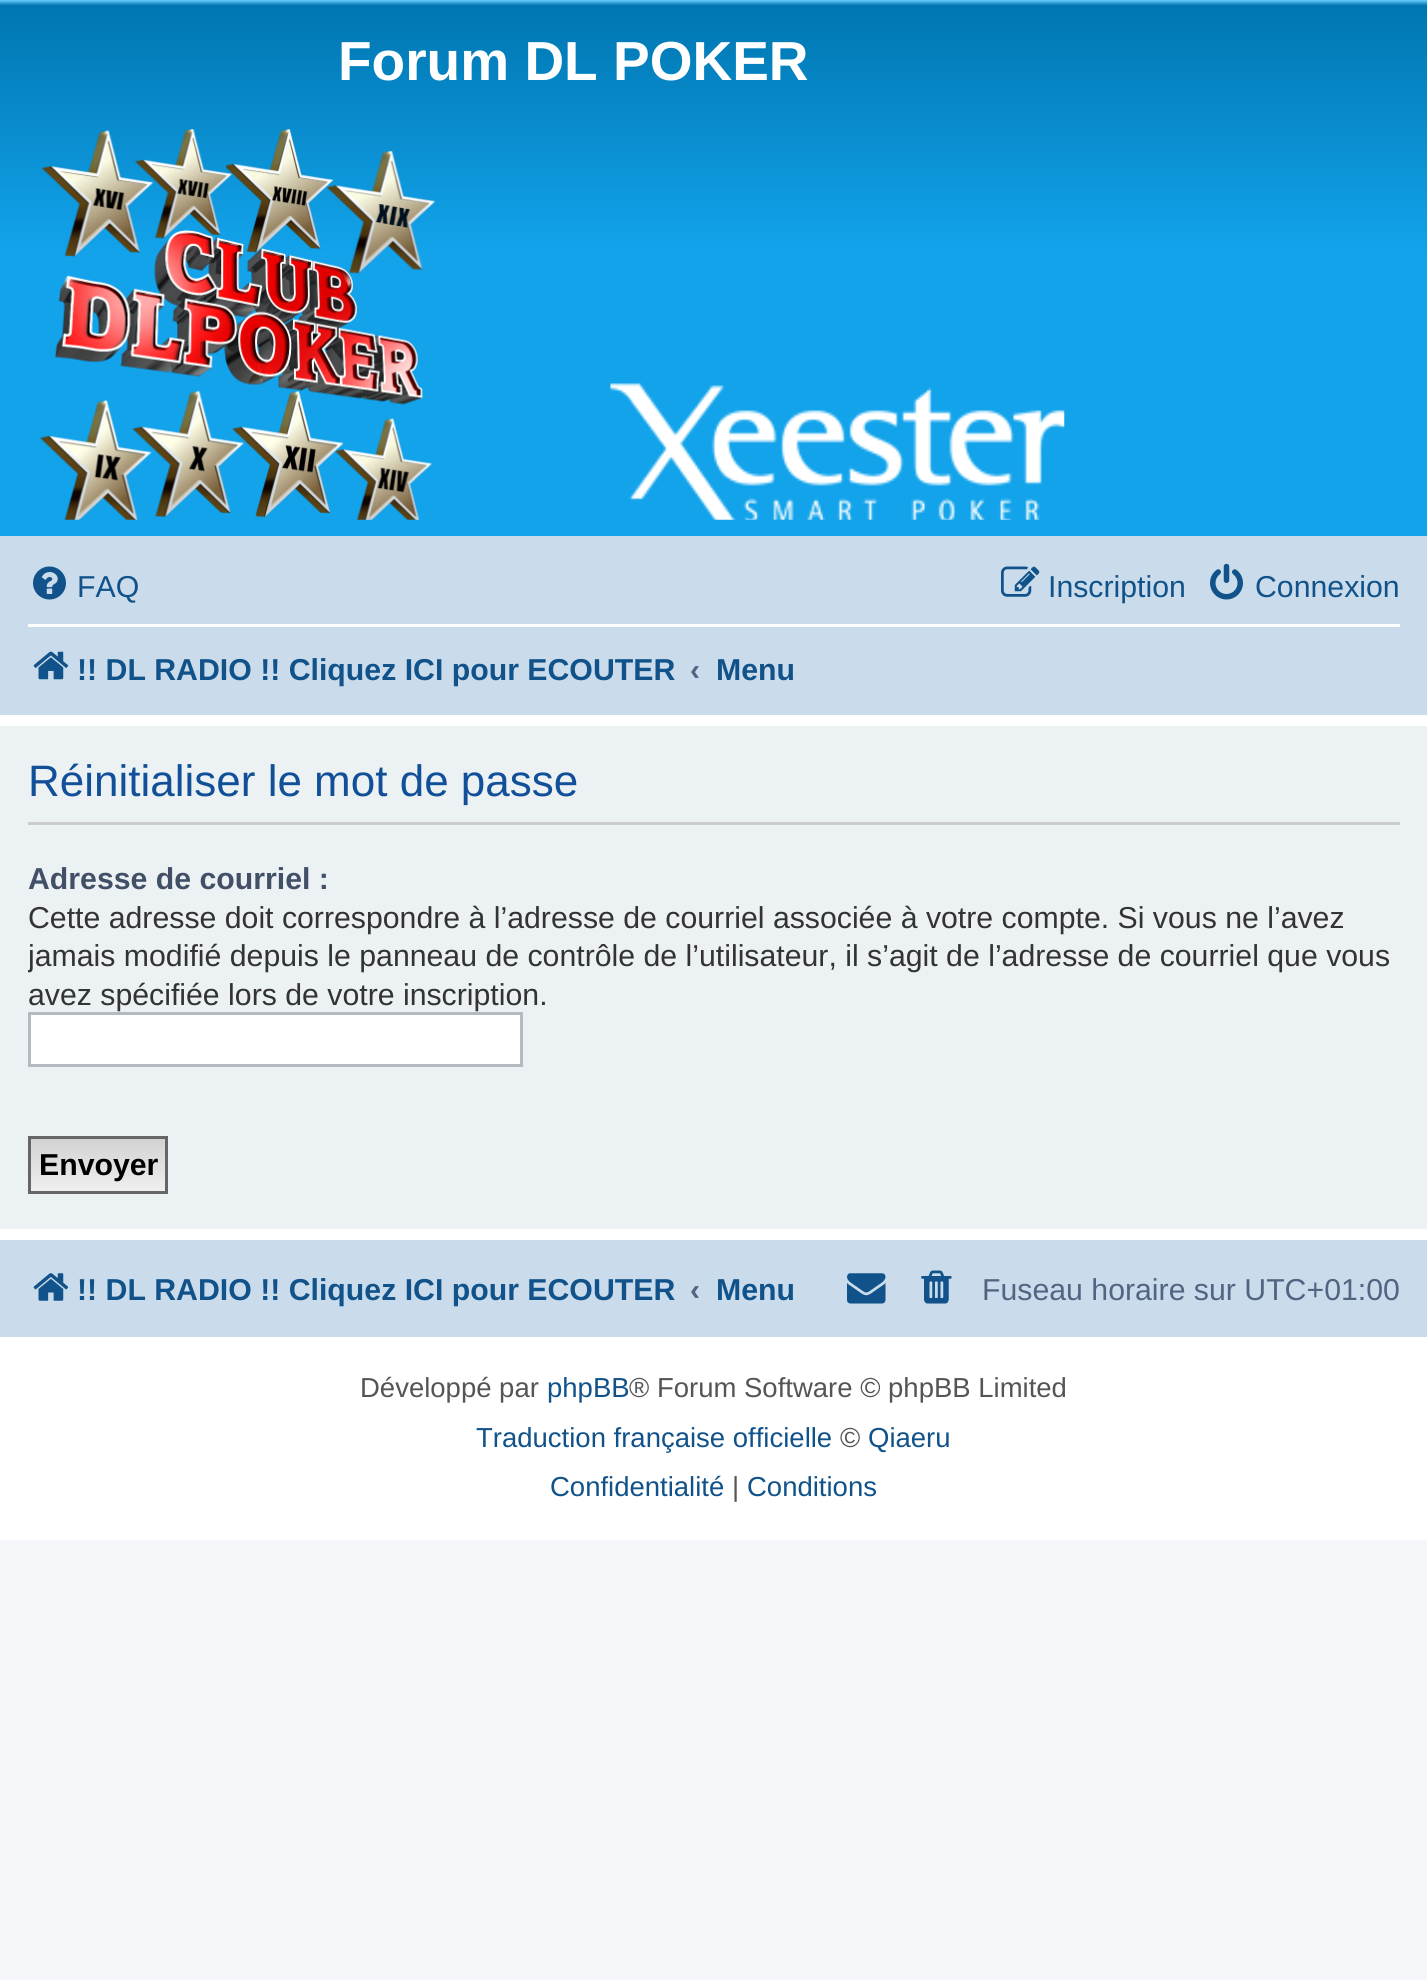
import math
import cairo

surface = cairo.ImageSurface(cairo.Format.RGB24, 1427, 1980)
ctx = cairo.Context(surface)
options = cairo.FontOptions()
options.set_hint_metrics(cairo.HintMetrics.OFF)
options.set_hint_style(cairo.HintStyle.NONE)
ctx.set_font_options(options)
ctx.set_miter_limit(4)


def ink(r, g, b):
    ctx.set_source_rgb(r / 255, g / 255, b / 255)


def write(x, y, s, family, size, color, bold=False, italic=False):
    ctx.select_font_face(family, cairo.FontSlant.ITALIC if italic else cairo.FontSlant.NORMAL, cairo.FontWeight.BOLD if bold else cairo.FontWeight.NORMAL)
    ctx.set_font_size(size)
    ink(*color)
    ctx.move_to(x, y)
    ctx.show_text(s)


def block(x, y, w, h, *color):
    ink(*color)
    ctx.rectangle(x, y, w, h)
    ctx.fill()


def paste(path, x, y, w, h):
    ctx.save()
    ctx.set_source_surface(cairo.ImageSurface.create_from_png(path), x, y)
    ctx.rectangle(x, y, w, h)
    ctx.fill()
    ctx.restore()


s1 = dict(family="Liberation Sans", size=55, color=(255, 255, 255), bold=True)
s2 = dict(family="Liberation Sans", size=30.25, color=(16, 82, 137))
s3 = dict(family="Liberation Sans", size=30.25, color=(16, 82, 137), bold=True)
s4 = dict(family="Liberation Sans", size=30.25, color=(83, 100, 130), bold=True)
s5 = dict(family="Liberation Sans", size=44, color=(17, 80, 152))
s6 = dict(family="Liberation Sans", size=30.25, color=(66, 80, 103), bold=True)
s7 = dict(family="Liberation Sans", size=30.25, color=(51, 51, 51))
s8 = dict(family="Liberation Sans", size=30.25, color=(0, 0, 0), bold=True)
s9 = dict(family="Liberation Sans", size=30.25, color=(83, 100, 130))
s10 = dict(family="Liberation Sans", size=27.5, color=(85, 85, 85))
s11 = dict(family="Liberation Sans", size=27.5, color=(16, 82, 137))

ink(245, 247, 250)
ctx.paint()
block(0, 715, 1427, 825, 255, 255, 255)
gradient = cairo.LinearGradient(714, 0, 714, 539)
gradient.add_color_stop_rgba(0, 0.416, 0.808, 1, 1)
gradient.add_color_stop_rgba(0.01, 0, 0.463, 0.694, 1)
gradient.add_color_stop_rgba(0.47, 0.071, 0.639, 0.922, 1)
gradient.add_color_stop_rgba(1, 0.071, 0.639, 0.922, 1)
ctx.set_source(gradient)
ctx.rectangle(0, 0, 1427, 536)
ctx.fill()
write(338, 80, "Forum DL POKER", **s1)
paste("pic1.png", 40, 129, 1025, 391)
block(0, 536, 1427, 179, 202, 220, 235)
paste("pic2.png", 33, 566, 33, 34)
write(77, 597, "FAQ", **s2)
paste("pic3.png", 1001, 566, 39, 31)
write(1048, 597, "Inscription", **s2)
paste("pic4.png", 1210, 563, 33, 37)
write(1255, 597, "Connexion", **s2)
block(28, 624, 1372, 3, 255, 255, 255)
paste("pic5.png", 33, 651, 36, 29)
write(77, 680, "!! DL RADIO !! Cliquez ICI pour ECOUTER", **s3)
write(690, 680, "‹", **s4)
write(716, 680, "Menu", **s3)
block(0, 726, 1427, 503, 236, 241, 243)
block(28, 822, 1372, 3, 204, 204, 204)
write(28, 796, "Réinitialiser le mot de passe", **s5)
write(28, 889, "Adresse de courriel :", **s6)
write(28, 928, "Cette adresse doit correspondre à l’adresse de courriel associée à votre compte. Si vous ne l’avez", **s7)
ctx.save()
ctx.rectangle(28, 847, 1372, 239)
ctx.clip()
write(28, 966, "jamais modifié depuis le panneau de contrôle de l’utilisateur, il s’agit de l’adresse de courriel que vous", **s7)
ctx.restore()
write(28, 1005, "avez spécifiée lors de votre inscription.", **s7)
ink(255, 255, 255)
ctx.rectangle(29.5, 1013.5, 492, 52)
ctx.fill_preserve()
ink(180, 186, 192)
ctx.set_line_width(3)
ctx.stroke()
gradient = cairo.LinearGradient(98, 1139, 98, 1191)
gradient.add_color_stop_rgba(0, 0.824, 0.824, 0.824, 1)
gradient.add_color_stop_rgba(1, 0.937, 0.937, 0.937, 1)
ctx.set_source(gradient)
ctx.rectangle(31, 1139, 134, 52)
ctx.fill()
ctx.rectangle(29.5, 1137.5, 137, 55)
ink(102, 102, 102)
ctx.stroke()
write(39, 1175, "Envoyer", **s8)
block(0, 1240, 1427, 97, 202, 220, 235)
paste("pic6.png", 33, 1273, 36, 28)
write(77, 1300, "!! DL RADIO !! Cliquez ICI pour ECOUTER", **s3)
write(690, 1300, "‹", **s4)
write(716, 1300, "Menu", **s3)
paste("pic7.png", 847, 1273, 39, 31)
paste("pic8.png", 921, 1270, 31, 34)
write(982, 1300, "Fuseau horaire sur UTC+01:00", **s9)
write(360, 1397, "Développé par", **s10)
write(547, 1397, "phpBB", **s11)
write(629, 1397, "® Forum Software © phpBB Limited", **s10)
write(476, 1447, "Traduction française officielle", **s11)
write(840, 1447, "©", **s10)
write(868, 1447, "Qiaeru", **s11)
write(550, 1496, "Confidentialité", **s11)
write(732, 1496, "|", **s10)
write(747, 1496, "Conditions", **s11)
surface.write_to_png("screenshot.png")
